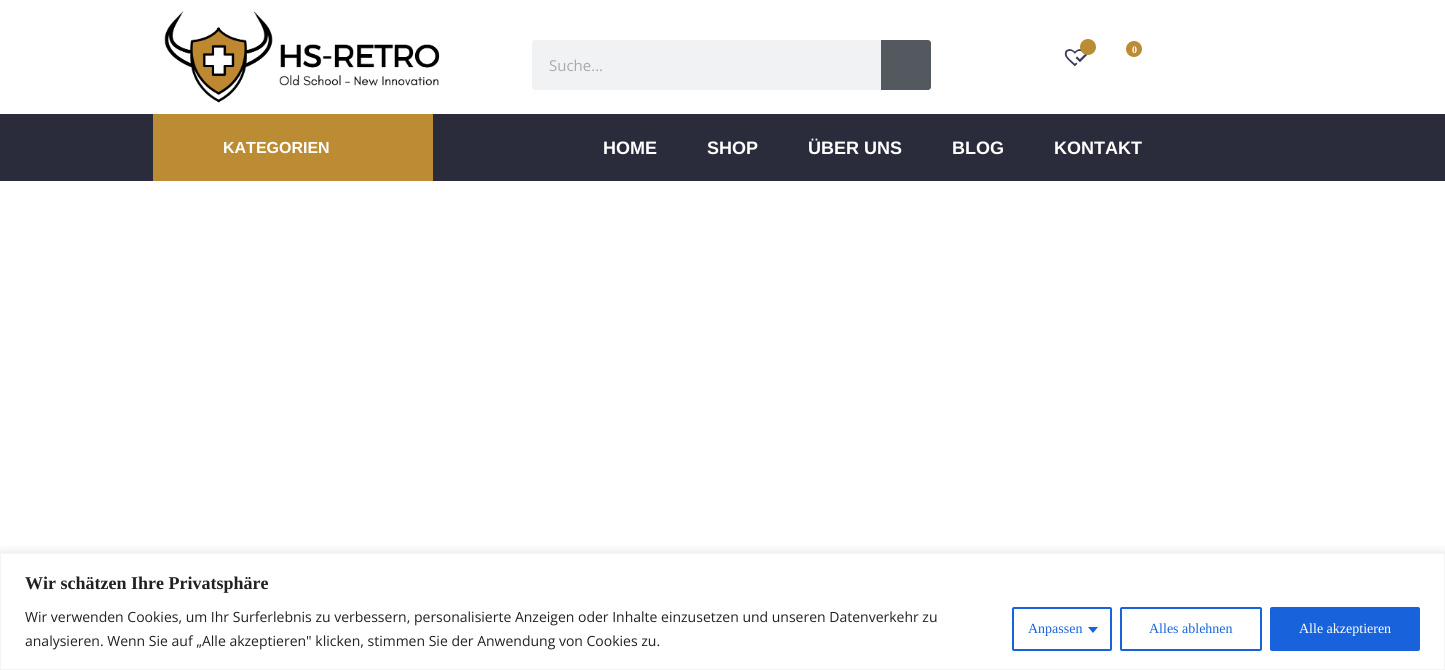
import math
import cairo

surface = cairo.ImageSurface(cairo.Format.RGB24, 1445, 670)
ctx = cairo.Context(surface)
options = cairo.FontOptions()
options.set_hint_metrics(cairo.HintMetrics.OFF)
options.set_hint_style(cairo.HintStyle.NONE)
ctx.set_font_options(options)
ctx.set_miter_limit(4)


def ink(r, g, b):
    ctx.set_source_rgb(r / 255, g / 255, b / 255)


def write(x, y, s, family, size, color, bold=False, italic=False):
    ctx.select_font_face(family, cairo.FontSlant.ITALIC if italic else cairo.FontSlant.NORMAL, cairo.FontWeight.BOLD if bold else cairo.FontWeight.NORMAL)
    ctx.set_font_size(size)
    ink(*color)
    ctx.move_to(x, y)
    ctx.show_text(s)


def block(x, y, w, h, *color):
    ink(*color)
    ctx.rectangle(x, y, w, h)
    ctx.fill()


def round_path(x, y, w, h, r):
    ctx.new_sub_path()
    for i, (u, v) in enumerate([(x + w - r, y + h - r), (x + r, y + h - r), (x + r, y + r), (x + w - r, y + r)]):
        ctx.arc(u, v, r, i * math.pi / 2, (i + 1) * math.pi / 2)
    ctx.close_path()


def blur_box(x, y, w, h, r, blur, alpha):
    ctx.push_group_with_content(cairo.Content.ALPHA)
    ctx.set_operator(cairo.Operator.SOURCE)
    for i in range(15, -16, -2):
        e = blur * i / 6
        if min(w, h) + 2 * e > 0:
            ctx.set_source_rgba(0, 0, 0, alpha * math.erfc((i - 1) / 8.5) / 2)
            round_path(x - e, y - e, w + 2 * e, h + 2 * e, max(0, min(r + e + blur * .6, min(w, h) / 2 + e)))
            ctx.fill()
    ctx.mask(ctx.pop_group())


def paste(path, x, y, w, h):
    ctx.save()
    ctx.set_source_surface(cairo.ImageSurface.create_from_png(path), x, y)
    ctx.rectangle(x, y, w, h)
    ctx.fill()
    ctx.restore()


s1 = dict(family="Liberation Serif", size=10, color=(255, 255, 255), bold=True)
s2 = dict(family="Open Sans", size=15, color=(170, 170, 170))
s3 = dict(family="Liberation Sans", size=16, color=(255, 255, 255), bold=True)
s4 = dict(family="Liberation Sans", size=18, color=(255, 255, 255), bold=True)
s5 = dict(family="Liberation Serif", size=18, color=(33, 33, 33), bold=True)
s6 = dict(family="Open Sans", size=14, color=(33, 33, 33))
s7 = dict(family="Liberation Serif", size=14, color=(24, 99, 220))
s8 = dict(family="Liberation Serif", size=14, color=(255, 255, 255))

ink(255, 255, 255)
ctx.paint()
paste("pic1.png", 164, 11, 276, 92)
paste("pic2.png", 1064, 49, 24, 18)
ink(188, 140, 52)
ctx.arc(1088, 47, 8, 0, 2 * math.pi)
ctx.fill()
ctx.arc(1134, 49, 8, 0, 2 * math.pi)
ctx.fill()
write(1132, 53, "0", **s1)
ink(241, 242, 243)
round_path(532, 40, 399, 50, 3)
ctx.fill()
write(549, 71, "Suche...", **s2)
ink(84, 89, 95)
ctx.new_path()
ctx.move_to(881, 40)
ctx.line_to(928, 40)
ctx.curve_to(929.5, 40, 931, 41.5, 931, 43)
ctx.line_to(931, 87)
ctx.curve_to(931, 88.5, 929.5, 90, 928, 90)
ctx.line_to(881, 90)
ctx.close_path()
ctx.fill()
block(0, 114, 1445, 67, 42, 44, 60)
block(153, 114, 280, 67, 188, 140, 52)
write(223, 153, "KATEGORIEN", **s3)
write(603, 154, "HOME", **s4)
write(707, 154, "SHOP", **s4)
write(808, 154, "ÜBER UNS", **s4)
write(952, 154, "BLOG", **s4)
write(1054, 154, "KONTAKT", **s4)
ctx.save()
ctx.rectangle(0, 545, 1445, 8)
ctx.clip()
ink(172, 171, 171)
blur_box(0, 552, 1445, 117, 0, 5, 0.3)
ctx.restore()
ctx.rectangle(0.5, 553.5, 1444, 116)
ink(244, 244, 244)
ctx.set_line_width(1)
ctx.stroke()
write(25, 589, "Wir schätzen Ihre Privatsphäre", **s5)
write(25, 622, "Wir verwenden Cookies, um Ihr Surferlebnis zu verbessern, personalisierte Anzeigen oder Inhalte einzusetzen und unseren Datenverkehr zu", **s6)
write(25, 646, "analysieren. Wenn Sie auf „Alle akzeptieren\" klicken, stimmen Sie der Anwendung von Cookies zu.", **s6)
round_path(1013, 608, 98, 42, 1)
ink(24, 99, 220)
ctx.set_line_width(2)
ctx.stroke()
write(1028, 633, "Anpassen", **s7)
ctx.new_path()
ctx.move_to(1088, 627)
ctx.line_to(1098, 627)
ctx.line_to(1093, 633)
ctx.close_path()
ctx.fill()
round_path(1121, 608, 140, 42, 1)
ctx.stroke()
write(1149, 633, "Alles ablehnen", **s7)
round_path(1271, 608, 148, 42, 1)
ctx.fill_preserve()
ctx.stroke()
write(1299, 633, "Alle akzeptieren", **s8)
surface.write_to_png("screenshot.png")
